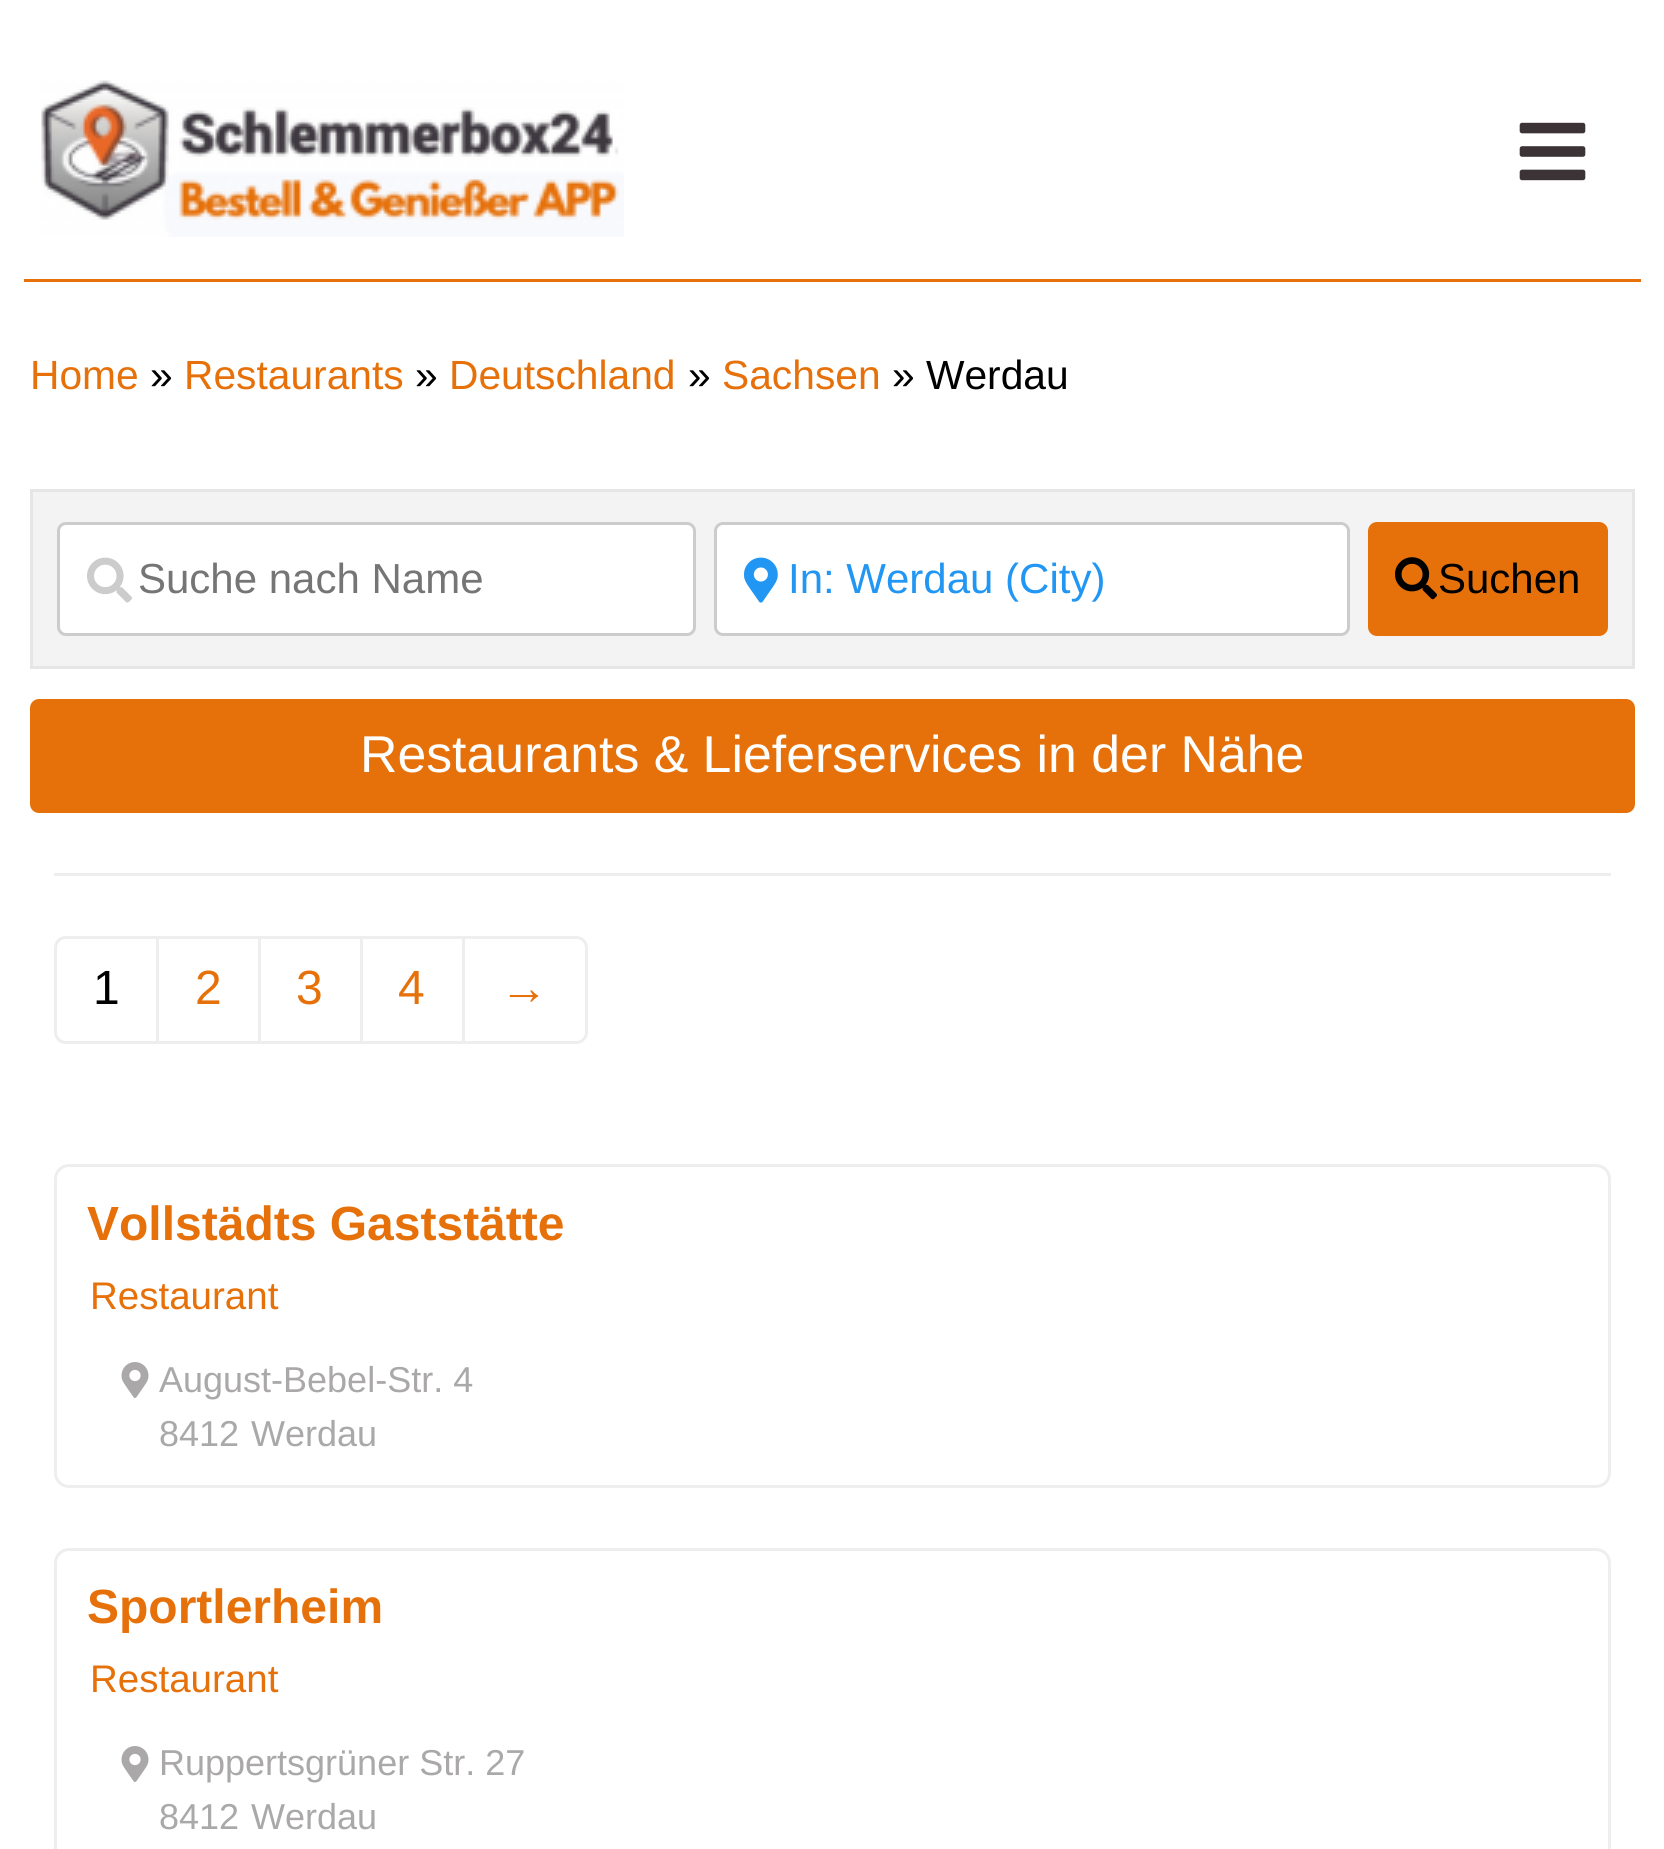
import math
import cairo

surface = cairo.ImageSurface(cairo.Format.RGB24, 1664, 1849)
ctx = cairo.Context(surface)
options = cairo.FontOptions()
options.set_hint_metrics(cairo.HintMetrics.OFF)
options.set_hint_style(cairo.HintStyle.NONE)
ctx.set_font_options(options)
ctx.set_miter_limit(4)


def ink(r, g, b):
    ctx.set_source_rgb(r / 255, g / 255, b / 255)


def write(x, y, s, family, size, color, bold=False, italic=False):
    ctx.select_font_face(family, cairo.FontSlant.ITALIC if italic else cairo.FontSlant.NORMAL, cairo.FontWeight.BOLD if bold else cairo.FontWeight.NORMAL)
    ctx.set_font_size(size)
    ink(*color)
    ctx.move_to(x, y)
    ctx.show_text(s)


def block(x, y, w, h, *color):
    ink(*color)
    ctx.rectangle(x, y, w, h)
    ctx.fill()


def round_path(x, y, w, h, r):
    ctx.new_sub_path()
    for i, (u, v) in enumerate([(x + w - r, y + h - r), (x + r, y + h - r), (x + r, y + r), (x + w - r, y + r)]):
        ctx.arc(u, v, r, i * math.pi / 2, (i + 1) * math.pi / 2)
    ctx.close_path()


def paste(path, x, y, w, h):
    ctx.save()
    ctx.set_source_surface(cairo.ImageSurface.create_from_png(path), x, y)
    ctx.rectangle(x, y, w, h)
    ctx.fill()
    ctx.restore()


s1 = dict(family="Liberation Sans", size=40.75, color=(230, 113, 10))
s2 = dict(family="Liberation Sans", size=40.75, color=(0, 0, 0))
s3 = dict(family="Liberation Sans", size=42, color=(117, 117, 117))
s4 = dict(family="Liberation Sans", size=42, color=(33, 150, 243))
s5 = dict(family="Liberation Sans", size=42, color=(0, 0, 0))
s6 = dict(family="Liberation Sans", size=51.8, color=(255, 255, 255))
s7 = dict(family="Liberation Sans", size=48, color=(0, 0, 0))
s8 = dict(family="Liberation Sans", size=48, color=(230, 113, 10))
s9 = dict(family="Liberation Sans", size=48, color=(230, 113, 10), bold=True)
s10 = dict(family="Liberation Sans", size=38.5, color=(230, 113, 10))
s11 = dict(family="Liberation Sans", size=36, color=(170, 168, 168))

ink(255, 255, 255)
ctx.paint()
block(24, 279, 1617, 3, 230, 113, 10)
paste("pic1.png", 41, 80, 583, 157)
paste("pic2.png", 1519, 122, 67, 59)
write(30, 389, "Home", **s1)
write(150, 389, "»", **s2)
write(184, 389, "Restaurants", **s1)
write(415, 389, "»", **s2)
write(449, 389, "Deutschland", **s1)
write(688, 389, "»", **s2)
write(722, 389, "Sachsen", **s1)
write(892, 389, "» Werdau", **s2)
ink(243, 243, 243)
ctx.rectangle(31.5, 490.5, 1602, 177)
ctx.fill_preserve()
ink(230, 230, 230)
ctx.set_line_width(3)
ctx.stroke()
ink(255, 255, 255)
round_path(58.5, 523.5, 636, 111, 7.5)
ctx.fill_preserve()
ink(204, 204, 204)
ctx.stroke()
paste("pic3.png", 87, 557, 45, 46)
write(138, 593, "Suche nach Name", **s3)
ink(255, 255, 255)
round_path(715.5, 523.5, 633, 111, 7.5)
ctx.fill_preserve()
ink(204, 204, 204)
ctx.stroke()
paste("pic4.png", 744, 557, 34, 46)
write(788, 593, "In: Werdau (City)", **s4)
ink(230, 113, 10)
round_path(1369.5, 523.5, 237, 111, 7.5)
ctx.fill_preserve()
ctx.stroke()
paste("pic5.png", 1395, 557, 42, 43)
write(1438, 593, "Suchen", **s5)
ink(230, 113, 10)
round_path(30, 699, 1605, 114, 9)
ctx.fill()
write(360, 772, "Restaurants & Lieferservices in der Nähe", **s6)
block(54, 873, 1557, 3, 238, 238, 238)
ctx.set_fill_rule(cairo.FillRule.EVEN_ODD)
ctx.new_path()
ctx.move_to(66, 936)
ctx.line_to(156, 936)
ctx.line_to(156, 1044)
ctx.line_to(66, 1044)
ctx.curve_to(59, 1044, 54, 1039, 54, 1032)
ctx.line_to(54, 948)
ctx.curve_to(54, 941, 59, 936, 66, 936)
ctx.close_path()
ctx.move_to(66, 939)
ctx.line_to(156, 939)
ctx.line_to(156, 1041)
ctx.line_to(66, 1041)
ctx.curve_to(61, 1041, 57, 1037, 57, 1032)
ctx.line_to(57, 948)
ctx.curve_to(57, 943, 61, 939, 66, 939)
ctx.close_path()
ctx.fill()
write(93, 1004, "1", **s7)
block(156, 936, 306, 3, 238, 238, 238)
block(156, 1041, 306, 3, 238, 238, 238)
block(156, 936, 3, 108, 238, 238, 238)
write(195, 1004, "2", **s8)
block(258, 936, 3, 108, 238, 238, 238)
write(296, 1004, "3", **s8)
block(360, 936, 3, 108, 238, 238, 238)
write(398, 1004, "4", **s8)
ctx.new_path()
ctx.move_to(463.5, 937.5)
ctx.line_to(576, 937.5)
ctx.curve_to(582, 937.5, 586.5, 942, 586.5, 948)
ctx.line_to(586.5, 1032)
ctx.curve_to(586.5, 1038, 582, 1042.5, 576, 1042.5)
ctx.line_to(463.5, 1042.5)
ctx.close_path()
ink(238, 238, 238)
ctx.stroke()
write(500, 1004, "→", **s8)
round_path(55.5, 1165.5, 1554, 321, 13.5)
ink(238, 238, 238)
ctx.stroke()
write(87, 1240, "Vollstädts Gaststätte", **s9)
write(90, 1309, "Restaurant", **s10)
paste("pic6.png", 121, 1362, 28, 36)
write(159, 1392, "August-Bebel-Str. 4", **s11)
write(159, 1446, "8412", **s11)
write(251, 1446, "Werdau", **s11)
round_path(55.5, 1549.5, 1554, 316, 13.5)
ink(238, 238, 238)
ctx.stroke()
write(87, 1623, "Sportlerheim", **s9)
write(90, 1692, "Restaurant", **s10)
paste("pic6.png", 121, 1746, 28, 36)
write(159, 1775, "Ruppertsgrüner Str. 27", **s11)
write(159, 1829, "8412", **s11)
write(251, 1829, "Werdau", **s11)
surface.write_to_png("screenshot.png")
